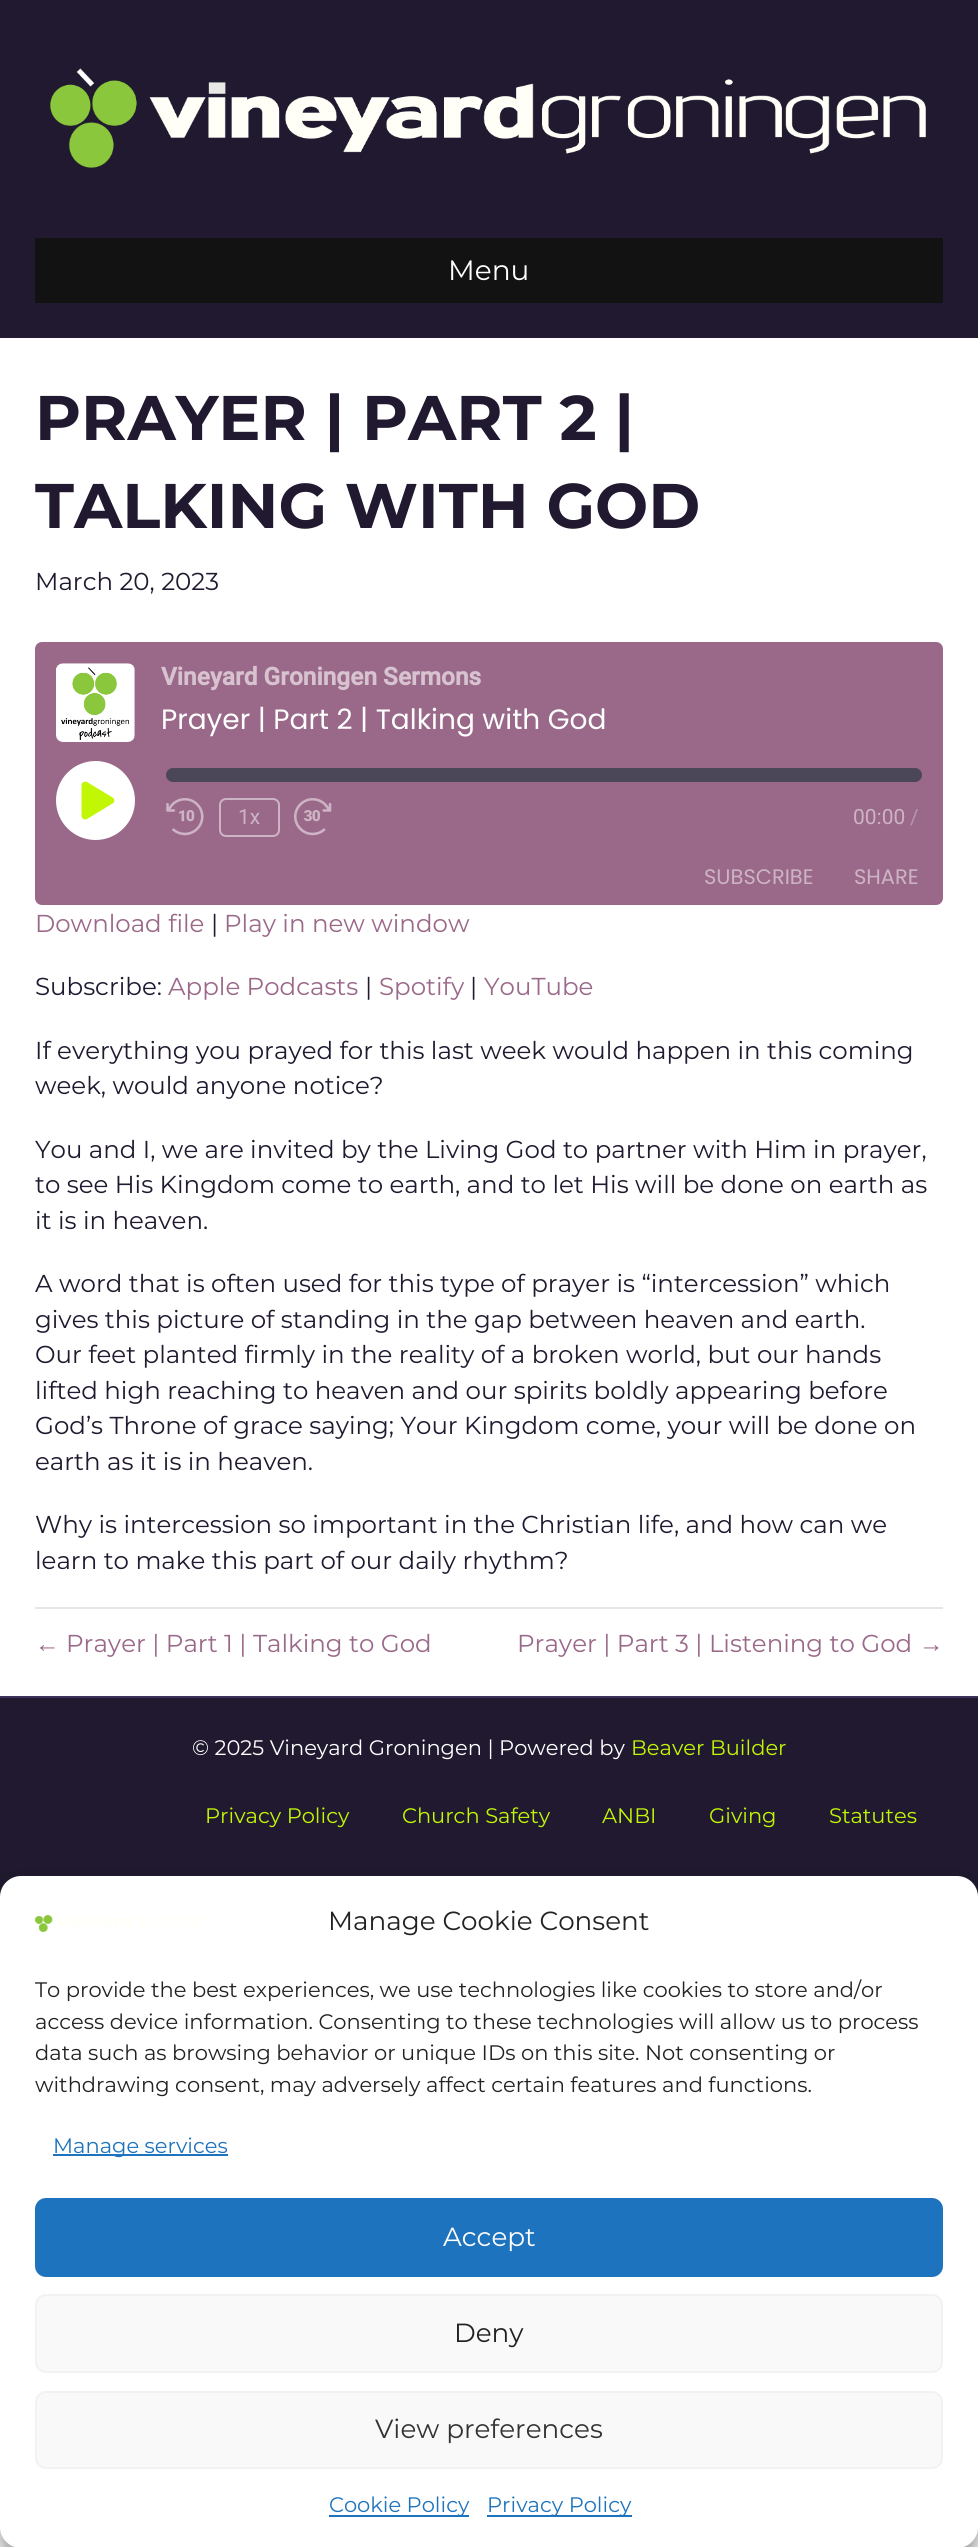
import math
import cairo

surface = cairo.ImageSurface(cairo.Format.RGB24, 978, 2547)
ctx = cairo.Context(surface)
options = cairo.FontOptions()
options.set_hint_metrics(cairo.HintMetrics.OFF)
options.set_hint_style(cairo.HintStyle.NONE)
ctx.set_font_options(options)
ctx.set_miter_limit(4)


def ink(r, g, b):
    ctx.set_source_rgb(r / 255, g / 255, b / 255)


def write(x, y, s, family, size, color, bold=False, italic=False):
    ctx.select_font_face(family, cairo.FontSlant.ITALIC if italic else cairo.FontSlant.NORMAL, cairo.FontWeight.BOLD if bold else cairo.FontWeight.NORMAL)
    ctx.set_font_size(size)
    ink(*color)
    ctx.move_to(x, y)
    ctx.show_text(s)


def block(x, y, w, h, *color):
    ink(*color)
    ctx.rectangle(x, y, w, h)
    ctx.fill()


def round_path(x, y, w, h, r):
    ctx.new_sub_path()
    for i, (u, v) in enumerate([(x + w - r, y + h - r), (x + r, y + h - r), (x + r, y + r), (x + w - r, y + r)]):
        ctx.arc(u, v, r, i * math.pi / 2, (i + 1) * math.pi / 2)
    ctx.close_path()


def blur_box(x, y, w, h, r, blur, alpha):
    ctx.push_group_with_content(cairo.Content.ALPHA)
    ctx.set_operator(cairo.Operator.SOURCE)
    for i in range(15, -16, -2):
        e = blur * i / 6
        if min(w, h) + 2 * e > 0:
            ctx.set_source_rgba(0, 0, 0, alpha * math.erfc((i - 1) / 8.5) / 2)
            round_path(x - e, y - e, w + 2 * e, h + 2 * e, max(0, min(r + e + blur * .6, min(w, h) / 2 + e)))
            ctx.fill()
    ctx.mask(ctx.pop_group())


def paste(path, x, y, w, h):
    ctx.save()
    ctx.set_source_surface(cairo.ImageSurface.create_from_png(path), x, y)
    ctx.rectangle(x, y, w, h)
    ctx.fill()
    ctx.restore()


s1 = dict(family="Montserrat", size=28, color=(255, 255, 255))
s2 = dict(family="Montserrat", size=63, color=(32, 25, 47), bold=True)
s3 = dict(family="Montserrat", size=24.5, color=(32, 25, 47))
s4 = dict(family="Roboto", size=24.5, color=(215, 195, 208), bold=True)
s5 = dict(family="Poppins", size=28, color=(255, 255, 255))
s6 = dict(family="Roboto", size=21, color=(205, 180, 196))
s7 = dict(family="Roboto", size=21, color=(184, 149, 172))
s8 = dict(family="Poppins", size=21, color=(205, 180, 196))
s9 = dict(family="Montserrat", size=24.5, color=(154, 104, 137))
s10 = dict(family="Liberation Sans", size=24.5, color=(154, 104, 137))
s11 = dict(family="Montserrat", size=21, color=(255, 255, 255))
s12 = dict(family="Montserrat", size=21, color=(193, 247, 5))
s13 = dict(family="Montserrat", size=26.25, color=(34, 34, 34))
s14 = dict(family="Montserrat", size=21, color=(34, 34, 34))
s15 = dict(family="Montserrat", size=21, color=(30, 115, 190))
s16 = dict(family="Montserrat", size=26.25, color=(255, 255, 255))
s17 = dict(family="Montserrat", size=26.25, color=(51, 51, 51))

ink(255, 255, 255)
ctx.paint()
block(0, 0, 978, 338, 32, 25, 47)
paste("pic1.png", 50, 68, 876, 100)
block(35, 238, 908, 65, 18, 18, 18)
write(448, 280, "Menu", **s1)
write(35, 440, "PRAYER | PART 2 |", **s2)
write(35, 528, "TALKING WITH GOD", **s2)
write(35, 590, "March 20, 2023", **s3)
ink(154, 104, 137)
round_path(35, 642, 908, 263, 7)
ctx.fill()
paste("pic2.png", 56, 663, 79, 79)
write(161, 685, "Vineyard Groningen Sermons", **s4)
write(161, 729, "Prayer | Part 2 | Talking with God", **s5)
ctx.new_path()
ctx.arc(95.5, 800.5, 39.5, 0, 2 * math.pi)
ctx.fill()
ink(193, 247, 5)
ctx.new_path()
ctx.move_to(112.5, 797.5)
ctx.line_to(87, 782)
ctx.curve_to(85, 781, 81.5, 782, 81.5, 785)
ctx.line_to(81.5, 816)
ctx.curve_to(81.5, 818.5, 84.5, 820.5, 87, 819)
ctx.line_to(112.5, 803.5)
ctx.curve_to(115, 802.5, 115, 799, 112.5, 797.5)
ctx.close_path()
ctx.fill()
ink(76, 70, 89)
round_path(166, 768, 756, 14, 7)
ctx.fill()
paste("pic3.png", 166, 798, 38, 38)
round_path(220, 799, 59, 37, 6)
ink(205, 180, 196)
ctx.stroke()
write(238, 824, "1x", **s6)
paste("pic4.png", 294, 798, 38, 38)
write(853, 824, "00:00", **s6)
write(910, 824, "/", **s7)
write(704, 884, "SUBSCRIBE", **s8)
write(854, 884, "SHARE", **s8)
write(35, 932, "Download file", **s9)
write(211, 932, "|", **s3)
write(224, 932, "Play in new window", **s9)
write(35, 995, "Subscribe:", **s3)
write(168, 995, "Apple Podcasts", **s9)
write(365, 995, "|", **s3)
write(379, 995, "Spotify", **s9)
write(470, 995, "|", **s3)
write(484, 995, "YouTube", **s9)
write(35, 1059, "If everything you prayed for this last week would happen in this coming", **s3)
write(35, 1094, "week, would anyone notice?", **s3)
write(35, 1158, "You and I, we are invited by the Living God to partner with Him in prayer,", **s3)
write(35, 1193, "to see His Kingdom come to earth, and to let His will be done on earth as", **s3)
write(35, 1229, "it is in heaven.", **s3)
write(35, 1292, "A word that is often used for this type of prayer is “intercession” which", **s3)
write(35, 1328, "gives this picture of standing in the gap between heaven and earth.", **s3)
write(35, 1363, "Our feet planted firmly in the reality of a broken world, but our hands", **s3)
write(35, 1399, "lifted high reaching to heaven and our spirits boldly appearing before", **s3)
write(35, 1434, "God’s Throne of grace saying; Your Kingdom come, your will be done on", **s3)
write(35, 1470, "earth as it is in heaven.", **s3)
write(35, 1533, "Why is intercession so important in the Christian life, and how can we", **s3)
write(35, 1569, "learn to make this part of our daily rhythm?", **s3)
block(35, 1607, 908, 2, 230, 230, 230)
write(35, 1652, "←", **s10)
write(66, 1652, "Prayer | Part 1 | Talking to God", **s9)
write(517, 1652, "Prayer | Part 3 | Listening to God", **s9)
write(919, 1652, "→", **s10)
block(0, 1698, 978, 199, 32, 25, 47)
block(0, 1696, 978, 2, 61, 48, 90)
write(192, 1755, "© 2025 Vineyard Groningen | Powered by", **s11)
write(631, 1755, "Beaver Builder", **s12)
write(205, 1823, "Privacy Policy", **s12)
write(402, 1823, "Church Safety", **s12)
write(602, 1823, "ANBI", **s12)
write(709, 1823, "Giving", **s12)
write(829, 1823, "Statutes", **s12)
ink(0, 0, 0)
blur_box(0, 1887, 978, 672, 21, 5, 0.23)
blur_box(0, 1894, 978, 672, 21, 17.5, 0.19)
ink(255, 255, 255)
round_path(0, 1876, 978, 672, 21)
ctx.fill()
paste("pic5.png", 35, 1914, 175, 18)
write(328, 1930, "Manage Cookie Consent", **s13)
write(35, 1997, "To provide the best experiences, we use technologies like cookies to store and/or", **s14)
write(35, 2029, "access device information. Consenting to these technologies will allow us to process", **s14)
write(35, 2060, "data such as browsing behavior or unique IDs on this site. Not consenting or", **s14)
write(35, 2092, "withdrawing consent, may adversely affect certain features and functions.", **s14)
block(53, 2154, 175, 2, 30, 115, 190)
write(53, 2153, "Manage services", **s15)
round_path(36, 2199, 906, 77, 10)
ctx.fill_preserve()
ctx.stroke()
write(443, 2246, "Accept", **s16)
ink(249, 249, 249)
round_path(36, 2295, 906, 77, 10)
ctx.fill_preserve()
ink(242, 242, 242)
ctx.stroke()
write(454, 2342, "Deny", **s13)
ink(249, 249, 249)
round_path(36, 2392, 906, 76, 10)
ctx.fill_preserve()
ink(242, 242, 242)
ctx.stroke()
write(375, 2438, "View preferences", **s17)
block(329, 2515, 140, 2, 30, 115, 190)
write(329, 2512, "Cookie Policy", **s15)
block(487, 2515, 145, 2, 30, 115, 190)
write(487, 2512, "Privacy Policy", **s15)
surface.write_to_png("screenshot.png")
